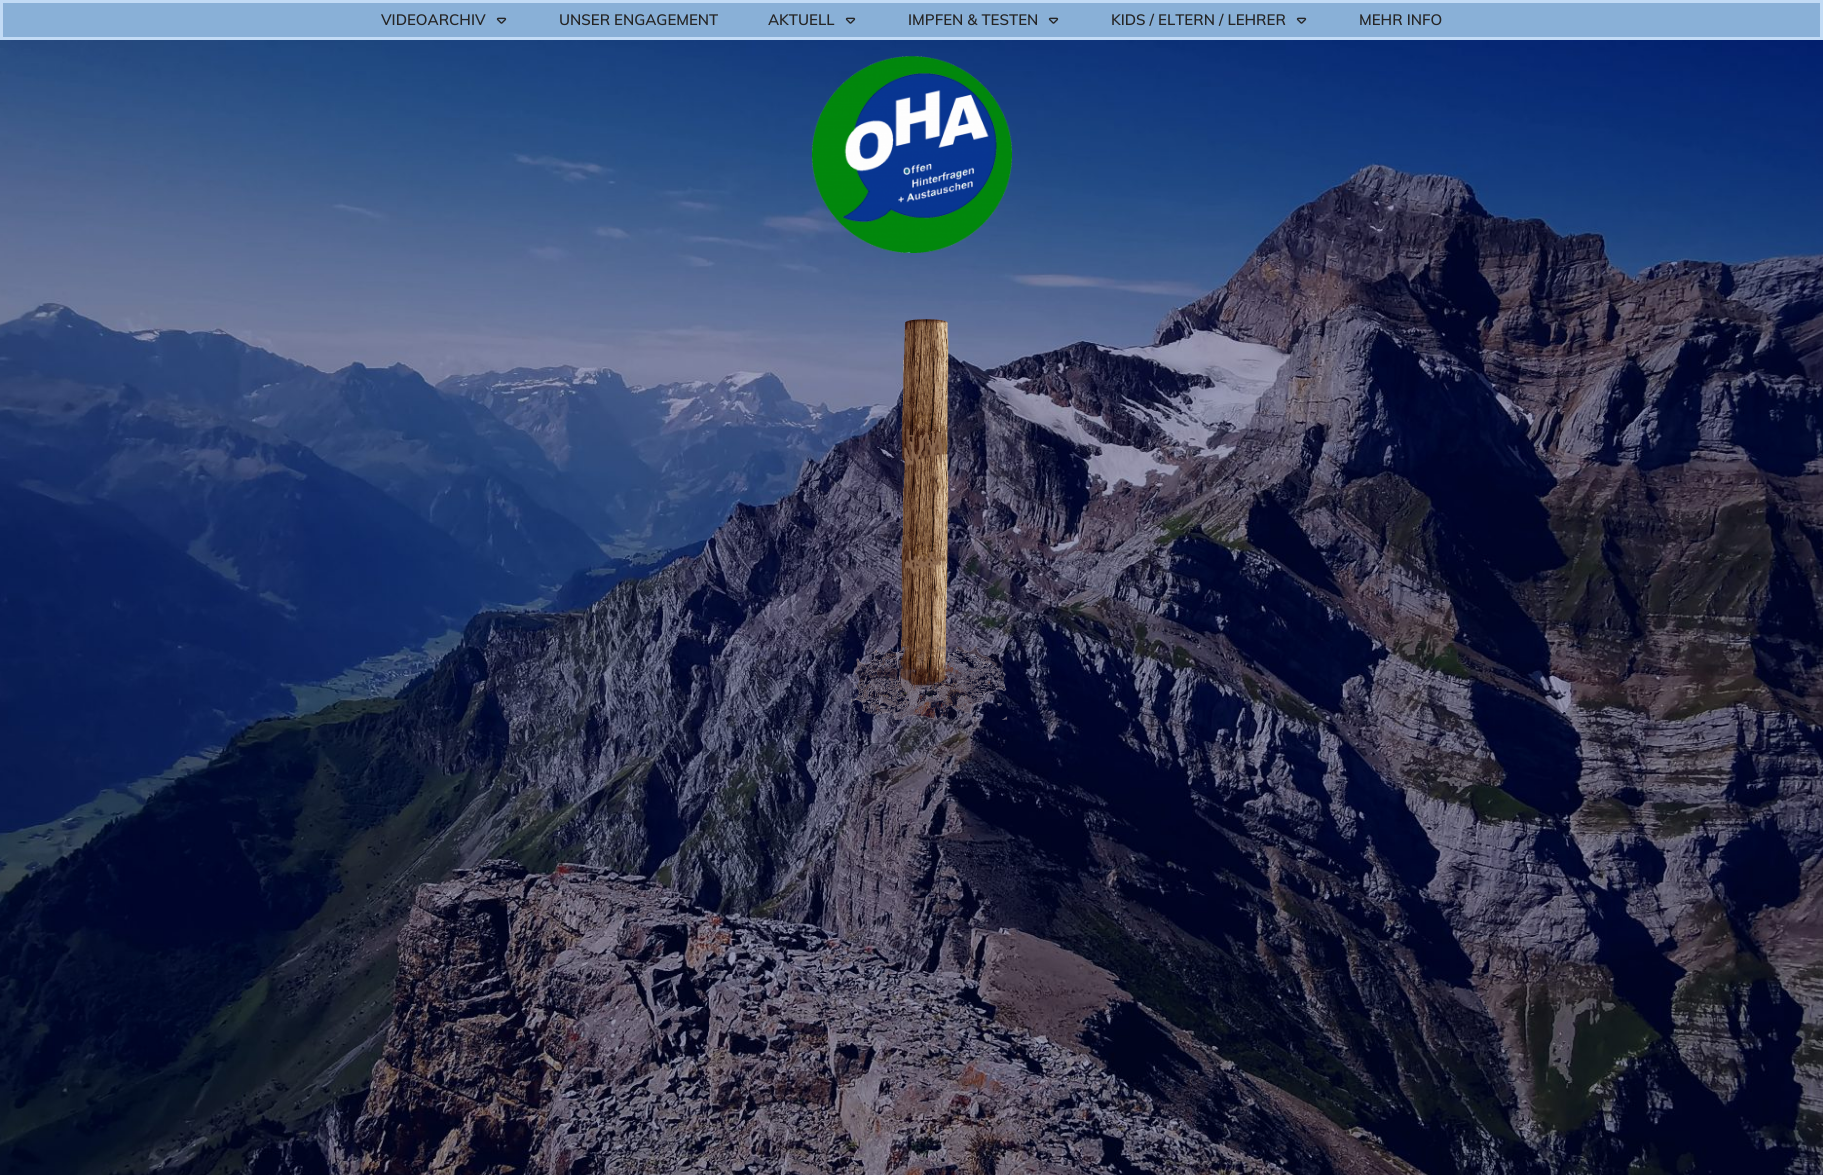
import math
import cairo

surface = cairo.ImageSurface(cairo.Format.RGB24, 1823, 1175)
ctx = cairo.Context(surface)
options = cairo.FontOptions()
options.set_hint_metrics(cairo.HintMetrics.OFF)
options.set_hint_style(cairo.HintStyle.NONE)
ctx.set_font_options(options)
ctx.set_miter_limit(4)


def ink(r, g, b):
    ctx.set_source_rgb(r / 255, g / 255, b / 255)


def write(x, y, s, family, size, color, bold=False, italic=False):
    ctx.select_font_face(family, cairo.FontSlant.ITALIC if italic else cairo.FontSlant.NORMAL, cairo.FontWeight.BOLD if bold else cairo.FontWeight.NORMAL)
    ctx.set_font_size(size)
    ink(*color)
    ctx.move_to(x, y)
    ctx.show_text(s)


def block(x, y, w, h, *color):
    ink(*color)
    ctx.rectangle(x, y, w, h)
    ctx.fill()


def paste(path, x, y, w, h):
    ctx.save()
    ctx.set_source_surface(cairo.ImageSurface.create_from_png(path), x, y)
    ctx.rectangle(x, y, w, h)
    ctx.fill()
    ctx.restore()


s1 = dict(family="Muli SemiBold", size=15, color=(37, 37, 37))

ink(194, 219, 245)
ctx.paint()
block(3, 3, 1817, 34, 137, 176, 215)
write(381, 25, "VIDEOARCHIV", **s1)
paste("pic1.png", 496, 17, 11, 7)
write(559, 25, "UNSER ENGAGEMENT", **s1)
write(768, 25, "AKTUELL", **s1)
paste("pic1.png", 845, 17, 11, 7)
write(908, 25, "IMPFEN & TESTEN", **s1)
paste("pic1.png", 1048, 17, 11, 7)
write(1111, 25, "KIDS / ELTERN / LEHRER", **s1)
paste("pic1.png", 1296, 17, 11, 7)
write(1359, 25, "MEHR INFO", **s1)
paste("pic2.png", 0, 40, 1823, 1135)
paste("pic3.png", 812, 56, 200, 197)
paste("pic4.png", 850, 319, 158, 401)
surface.write_to_png("screenshot.png")
